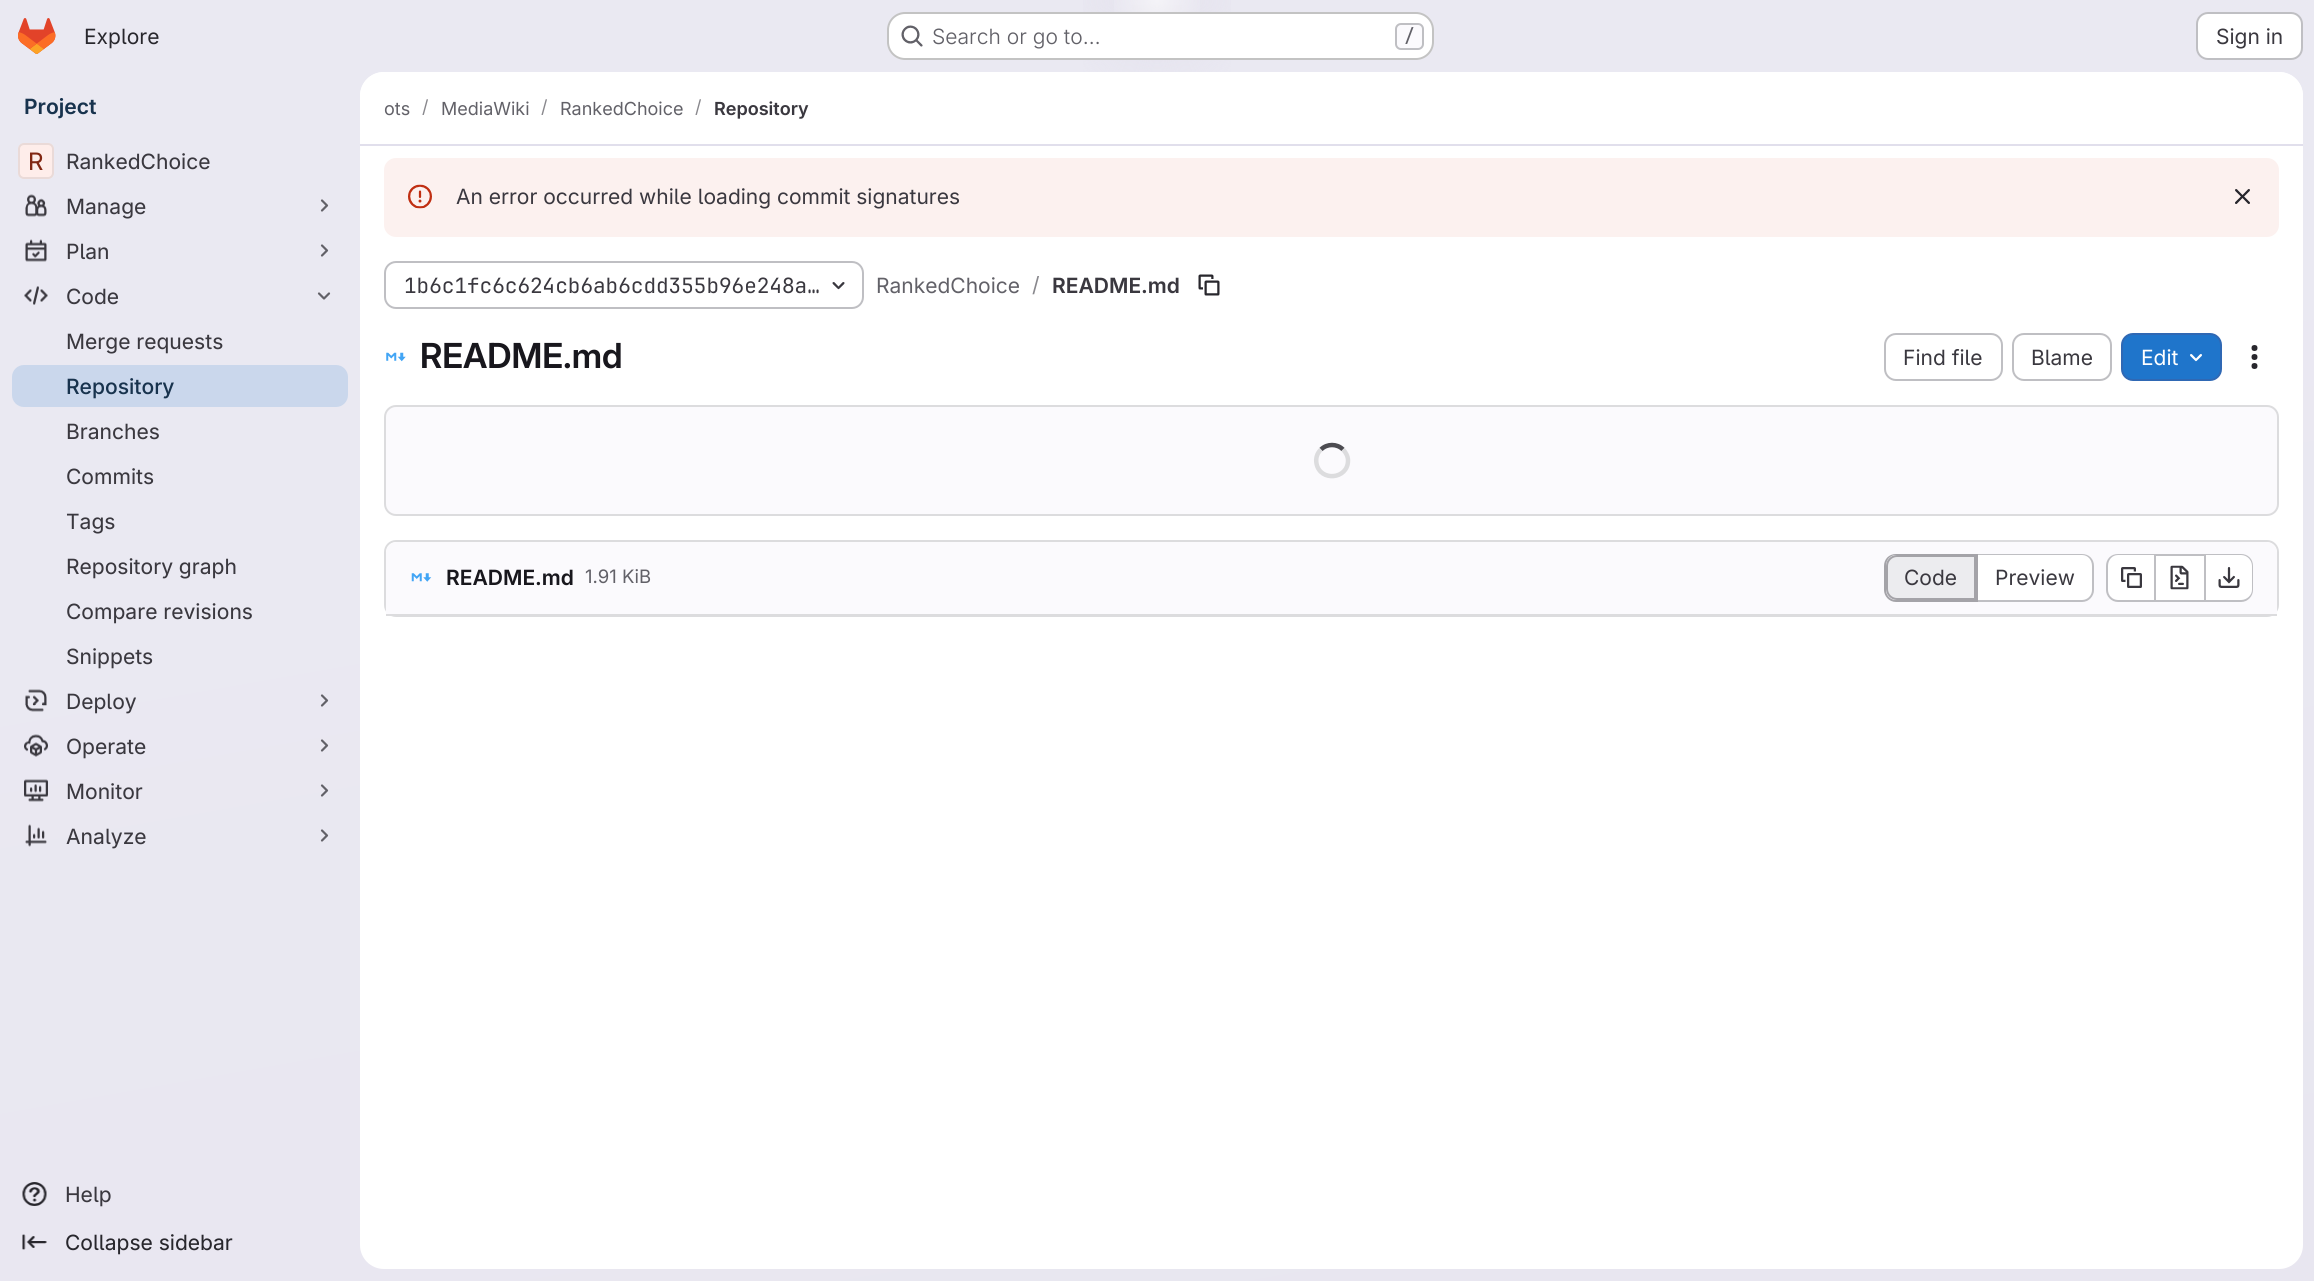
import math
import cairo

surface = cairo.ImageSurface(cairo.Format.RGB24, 2314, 1281)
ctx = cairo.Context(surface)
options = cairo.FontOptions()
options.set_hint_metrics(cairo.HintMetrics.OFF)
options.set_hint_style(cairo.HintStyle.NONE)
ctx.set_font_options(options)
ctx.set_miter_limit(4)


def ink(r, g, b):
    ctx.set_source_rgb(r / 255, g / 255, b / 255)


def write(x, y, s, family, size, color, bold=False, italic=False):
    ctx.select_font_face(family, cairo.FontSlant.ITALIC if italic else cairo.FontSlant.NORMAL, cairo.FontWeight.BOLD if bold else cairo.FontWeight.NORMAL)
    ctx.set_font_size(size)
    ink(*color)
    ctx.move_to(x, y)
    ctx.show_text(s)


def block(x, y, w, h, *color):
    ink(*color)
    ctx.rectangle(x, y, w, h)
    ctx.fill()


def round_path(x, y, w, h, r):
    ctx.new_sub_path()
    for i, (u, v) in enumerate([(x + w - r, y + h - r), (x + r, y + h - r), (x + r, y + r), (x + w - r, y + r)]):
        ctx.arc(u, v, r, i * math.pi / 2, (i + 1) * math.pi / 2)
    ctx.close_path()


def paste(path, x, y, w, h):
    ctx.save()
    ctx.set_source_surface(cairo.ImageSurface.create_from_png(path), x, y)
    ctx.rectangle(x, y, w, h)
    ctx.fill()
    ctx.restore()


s1 = dict(family="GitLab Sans", size=21, color=(40, 39, 45))
s2 = dict(family="GitLab Sans Light", size=21, color=(98, 97, 104))
s3 = dict(family="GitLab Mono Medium", size=18, color=(98, 97, 104))
s4 = dict(family="GitLab Sans", size=21, color=(58, 56, 63))
s5 = dict(family="GitLab Sans SemiBold", size=21, color=(24, 51, 78))
s6 = dict(family="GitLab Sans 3", size=24, color=(129, 39, 19))
s7 = dict(family="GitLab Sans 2", size=21, color=(58, 56, 63))
s8 = dict(family="GitLab Sans Medium", size=21, color=(24, 51, 78))
s9 = dict(family="GitLab Sans 2", size=21, color=(40, 39, 45))
s10 = dict(family="GitLab Sans", size=18, color=(98, 97, 104))
s11 = dict(family="GitLab Sans", size=18, color=(137, 136, 141))
s12 = dict(family="GitLab Sans SemiBold", size=18, color=(58, 56, 63))
s13 = dict(family="GitLab Mono", size=21, color=(58, 56, 63))
s14 = dict(family="GitLab Sans", size=21, color=(98, 97, 104))
s15 = dict(family="GitLab Sans", size=21, color=(137, 136, 141))
s16 = dict(family="GitLab Sans SemiBold", size=21, color=(58, 56, 63))
s17 = dict(family="GitLab Sans 2 SemiBold", size=34.5, color=(24, 23, 29))
s18 = dict(family="GitLab Sans", size=21, color=(255, 255, 255))
s19 = dict(family="GitLab Sans SemiBold", size=21, color=(24, 23, 29))
s20 = dict(family="GitLab Sans", size=18.5, color=(98, 97, 104))

ink(255, 255, 255)
ctx.paint()
gradient = cairo.LinearGradient(1302, 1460, 1013, -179)
gradient.add_color_stop_rgba(0, 0.91, 0.902, 0.941, 1)
gradient.add_color_stop_rgba(0.7, 0.918, 0.914, 0.949, 1)
ctx.set_source(gradient)
ctx.rectangle(0, 0, 2314, 1281)
ctx.fill()
gradient = cairo.RadialGradient(0, 0, 0, 0, 0, 1)
gradient.set_matrix(cairo.Matrix(1 / 1157, 0, 0, 1 / 1281, -1 * 1157 / 1157, -1 * 0 / 1281))
gradient.add_color_stop_rgba(0, 0.894, 0.886, 0.929, 1)
gradient.add_color_stop_rgba(0.09, 0.894, 0.886, 0.929, 0)
ctx.set_source(gradient)
ctx.rectangle(1083, 0, 148, 72)
ctx.fill()
gradient = cairo.RadialGradient(0, 0, 0, 0, 0, 1)
gradient.set_matrix(cairo.Matrix(1 / 1157, 0, 0, 1 / 1281, -1 * 1157 / 1157, -1 * 0 / 1281))
gradient.add_color_stop_rgba(0, 0.894, 0.886, 0.925, 1)
gradient.add_color_stop_rgba(0.06, 0.894, 0.886, 0.925, 0)
ctx.set_source(gradient)
ctx.rectangle(1132, 5, 50, 5)
ctx.fill()
gradient = cairo.RadialGradient(1157, 0, 0, 1157, 0, 1726)
gradient.add_color_stop_rgba(0, 1, 1, 1, 0.6)
gradient.add_color_stop_rgba(0.03, 1, 1, 1, 0)
ctx.set_source(gradient)
ctx.rectangle(1114, 0, 86, 12)
ctx.fill()
paste("pic1.png", 18, 18, 38, 36)
write(84, 44, "Explore", **s1)
ink(255, 255, 255)
round_path(887, 12, 547, 48, 18)
ctx.fill()
round_path(888, 13, 545, 46, 17)
ctx.set_source_rgba(0.02, 0.02, 0.024, 0.24)
ctx.stroke()
paste("pic2.png", 901, 25, 22, 22)
write(932, 44, "Search or go to…", **s2)
ink(251, 250, 253)
round_path(1396, 24, 27, 25, 5)
ctx.fill_preserve()
ink(191, 191, 195)
ctx.stroke()
write(1404, 42, "/", **s3)
ink(255, 255, 255)
round_path(2197, 13, 105, 46, 11)
ctx.fill_preserve()
ink(191, 191, 195)
ctx.stroke()
write(2216, 44, "Sign in", **s4)
write(24, 114, "Project", **s5)
ink(255, 255, 255)
round_path(18, 143, 36, 36, 6)
ctx.fill()
ctx.set_source_rgba(0.988, 0.71, 0.667, 0.24)
round_path(18, 143, 36, 36, 6)
ctx.fill()
round_path(19, 144, 34, 34, 5)
ctx.set_source_rgba(0.02, 0.02, 0.024, 0.08)
ctx.stroke()
write(28, 170, "R", **s6)
write(66, 169, "RankedChoice", **s7)
paste("pic3.png", 25, 194, 22, 23)
write(66, 214, "Manage", **s7)
ctx.new_path()
ctx.move_to(322, 200.5)
ctx.line_to(327, 205.5)
ctx.line_to(322, 210.5)
ink(98, 97, 104)
ctx.set_line_width(2.2)
ctx.set_line_cap(cairo.LineCap.ROUND)
ctx.set_line_join(cairo.LineJoin.ROUND)
ctx.stroke()
paste("pic4.png", 25, 239, 22, 23)
write(66, 259, "Plan", **s7)
ctx.new_path()
ctx.move_to(322, 245.5)
ctx.line_to(327, 250.5)
ctx.line_to(322, 255.5)
ink(98, 97, 104)
ctx.stroke()
paste("pic5.png", 24, 286, 24, 19)
write(66, 304, "Code", **s7)
ctx.new_path()
ctx.move_to(329, 293.5)
ctx.line_to(324, 298.5)
ctx.line_to(319, 293.5)
ink(98, 97, 104)
ctx.stroke()
write(66, 349, "Merge requests", **s7)
ink(202, 215, 236)
round_path(12, 365, 336, 42, 12)
ctx.fill()
write(66, 394, "Repository", **s8)
write(66, 439, "Branches", **s7)
write(66, 484, "Commits", **s7)
write(66, 529, "Tags", **s7)
write(66, 574, "Repository graph", **s7)
write(66, 619, "Compare revisions", **s7)
write(66, 664, "Snippets", **s7)
paste("pic6.png", 25, 689, 22, 23)
write(66, 709, "Deploy", **s7)
ctx.new_path()
ctx.move_to(322, 695.5)
ctx.line_to(327, 700.5)
ctx.line_to(322, 705.5)
ink(98, 97, 104)
ctx.stroke()
paste("pic7.png", 24, 734, 24, 23)
write(66, 754, "Operate", **s7)
ctx.new_path()
ctx.move_to(322, 740.5)
ctx.line_to(327, 745.5)
ctx.line_to(322, 750.5)
ink(98, 97, 104)
ctx.stroke()
paste("pic8.png", 24, 779, 24, 23)
write(66, 799, "Monitor", **s7)
ctx.new_path()
ctx.move_to(322, 785.5)
ctx.line_to(327, 790.5)
ctx.line_to(322, 795.5)
ink(98, 97, 104)
ctx.stroke()
paste("pic9.png", 25, 824, 22, 23)
write(66, 844, "Analyze", **s7)
ctx.new_path()
ctx.move_to(322, 830.5)
ctx.line_to(327, 835.5)
ctx.line_to(322, 840.5)
ink(98, 97, 104)
ctx.stroke()
paste("pic10.png", 22, 1182, 25, 24)
write(65, 1202, "Help", **s7)
paste("pic11.png", 22, 1234, 25, 16)
write(65, 1250, "Collapse sidebar", **s9)
ink(255, 255, 255)
round_path(360, 72, 1943, 1197, 24)
ctx.fill()
ctx.new_path()
ctx.move_to(384, 72)
ctx.line_to(2279, 72)
ctx.curve_to(2292.5, 72, 2303, 82.5, 2303, 96)
ctx.line_to(2303, 146)
ctx.line_to(360, 146)
ctx.line_to(360, 96)
ctx.curve_to(360, 82.5, 370.5, 72, 384, 72)
ctx.close_path()
ctx.fill()
block(360, 144, 1943, 2, 225, 223, 236)
write(384, 115, "ots", **s10)
write(422, 113, "/", **s11)
write(441, 115, "MediaWiki", **s10)
write(541, 113, "/", **s11)
write(560, 115, "RankedChoice", **s10)
write(695, 113, "/", **s11)
write(714, 115, "Repository", **s12)
ink(252, 241, 239)
round_path(384, 158, 1895, 79, 12)
ctx.fill()
paste("pic12.png", 408, 184, 24, 25)
write(456, 204, "An error occurred while loading commit signatures", **s4)
paste("pic13.png", 2235, 189, 15, 15)
round_path(385, 262, 478, 46, 11)
ink(191, 191, 195)
ctx.set_line_width(2)
ctx.set_line_cap(cairo.LineCap.BUTT)
ctx.set_line_join(cairo.LineJoin.MITER)
ctx.stroke()
write(404, 293, "1b6c1fc6c624cb6ab6cdd355b96e248a…", **s13)
paste("pic14.png", 832, 282, 13, 8)
write(876, 293, "RankedChoice", **s14)
write(1032, 292, "/", **s15)
write(1052, 293, "README.md", **s16)
paste("pic15.png", 1198, 274, 22, 22)
paste("pic16.png", 386, 352, 20, 10)
write(420, 368, "README.md", **s17)
round_path(1885, 334, 117, 46, 11)
ink(191, 191, 195)
ctx.stroke()
write(1903, 365, "Find file", **s4)
round_path(2013, 334, 98, 46, 11)
ink(191, 191, 195)
ctx.stroke()
write(2031, 365, "Blame", **s4)
ink(31, 117, 203)
round_path(2122, 334, 99, 46, 11)
ctx.fill_preserve()
ink(47, 104, 180)
ctx.stroke()
write(2141, 365, "Edit", **s18)
paste("pic17.png", 2190, 354, 12, 8)
paste("pic18.png", 2251, 345, 7, 24)
ink(251, 250, 253)
round_path(385, 406, 1893, 109, 11)
ctx.fill_preserve()
ink(220, 220, 222)
ctx.stroke()
ctx.new_path()
ctx.move_to(1321, 449.5)
ctx.curve_to(1327, 443.5, 1337, 443.5, 1343, 449.5)
ink(76, 75, 81)
ctx.set_line_width(4.5)
ctx.stroke()
ctx.new_path()
ctx.move_to(1343, 449.5)
ctx.curve_to(1346, 452.5, 1348, 456.5, 1348, 460.5)
ctx.curve_to(1348, 479.5, 1320, 482, 1316.5, 463.5)
ctx.curve_to(1315.5, 458.5, 1317, 453, 1321, 449.5)
ink(220, 220, 222)
ctx.stroke()
round_path(385, 541, 1893, 75, 11)
ctx.set_line_width(2)
ctx.stroke()
ink(251, 250, 253)
ctx.new_path()
ctx.move_to(397, 542)
ctx.line_to(2266, 542)
ctx.curve_to(2272, 542, 2277, 547, 2277, 553)
ctx.line_to(2277, 615)
ctx.line_to(386, 615)
ctx.line_to(386, 553)
ctx.curve_to(386, 547, 391, 542, 397, 542)
ctx.close_path()
ctx.fill()
block(386, 614, 1891, 2, 220, 220, 222)
paste("pic19.png", 411, 573, 21, 9)
write(446, 585, "README.md", **s19)
write(585, 583, "1.91 KiB", **s20)
ink(236, 236, 239)
ctx.new_path()
ctx.move_to(1897, 556)
ctx.line_to(1975, 556)
ctx.line_to(1975, 599)
ctx.line_to(1897, 599)
ctx.curve_to(1891.5, 599, 1887, 594.5, 1887, 589)
ctx.line_to(1887, 566)
ctx.curve_to(1887, 560.5, 1891.5, 556, 1897, 556)
ctx.close_path()
ctx.fill_preserve()
ink(164, 163, 168)
ctx.stroke()
ctx.set_fill_rule(cairo.FillRule.EVEN_ODD)
ctx.new_path()
ctx.move_to(1896, 554)
ctx.line_to(1976, 554)
ctx.line_to(1976, 602)
ctx.line_to(1896, 602)
ctx.curve_to(1889, 602, 1884, 596, 1884, 590)
ctx.line_to(1884, 566)
ctx.curve_to(1884, 559, 1889, 554, 1896, 554)
ctx.close_path()
ctx.move_to(1896, 555)
ctx.line_to(1976, 555)
ctx.line_to(1976, 600)
ctx.line_to(1896, 600)
ctx.curve_to(1890, 600, 1886, 595, 1886, 590)
ctx.line_to(1886, 566)
ctx.curve_to(1886, 560, 1890, 555, 1896, 555)
ctx.close_path()
ctx.fill()
write(1904, 585, "Code", **s4)
ink(255, 255, 255)
ctx.new_path()
ctx.move_to(1977, 555)
ctx.line_to(2082, 555)
ctx.curve_to(2088, 555, 2093, 560, 2093, 566)
ctx.line_to(2093, 589)
ctx.curve_to(2093, 595, 2088, 600, 2082, 600)
ctx.line_to(1977, 600)
ctx.close_path()
ctx.fill()
ink(191, 191, 195)
ctx.new_path()
ctx.move_to(1977, 554)
ctx.line_to(2082, 554)
ctx.curve_to(2089, 554, 2094, 559, 2094, 566)
ctx.line_to(2094, 590)
ctx.curve_to(2094, 596, 2089, 602, 2082, 602)
ctx.line_to(1977, 602)
ctx.close_path()
ctx.move_to(1977, 555)
ctx.line_to(2082, 555)
ctx.curve_to(2088, 555, 2092, 560, 2092, 566)
ctx.line_to(2092, 590)
ctx.curve_to(2092, 595, 2088, 600, 2082, 600)
ctx.line_to(1977, 600)
ctx.close_path()
ctx.fill()
block(1976, 554, 2, 48, 164, 163, 168)
write(1995, 585, "Preview", **s4)
ink(255, 255, 255)
ctx.new_path()
ctx.move_to(2119, 555)
ctx.line_to(2154, 555)
ctx.line_to(2154, 600)
ctx.line_to(2119, 600)
ctx.curve_to(2113, 600, 2108, 595, 2108, 589)
ctx.line_to(2108, 566)
ctx.curve_to(2108, 560, 2113, 555, 2119, 555)
ctx.close_path()
ctx.fill()
ink(191, 191, 195)
ctx.new_path()
ctx.move_to(2118, 554)
ctx.line_to(2154, 554)
ctx.line_to(2154, 602)
ctx.line_to(2118, 602)
ctx.curve_to(2111, 602, 2106, 596, 2106, 590)
ctx.line_to(2106, 566)
ctx.curve_to(2106, 559, 2111, 554, 2118, 554)
ctx.close_path()
ctx.move_to(2118, 555)
ctx.line_to(2154, 555)
ctx.line_to(2154, 600)
ctx.line_to(2118, 600)
ctx.curve_to(2112, 600, 2108, 595, 2108, 590)
ctx.line_to(2108, 566)
ctx.curve_to(2108, 560, 2112, 555, 2118, 555)
ctx.close_path()
ctx.fill()
paste("pic20.png", 2121, 567, 21, 21)
block(2156, 556, 48, 44, 255, 255, 255)
block(2156, 554, 48, 2, 191, 191, 195)
block(2156, 600, 48, 2, 191, 191, 195)
block(2154, 554, 2, 48, 191, 191, 195)
paste("pic21.png", 2170, 565, 19, 25)
ink(255, 255, 255)
ctx.new_path()
ctx.move_to(2205, 555)
ctx.line_to(2241, 555)
ctx.curve_to(2247, 555, 2252, 560, 2252, 566)
ctx.line_to(2252, 589)
ctx.curve_to(2252, 595, 2247, 600, 2241, 600)
ctx.line_to(2205, 600)
ctx.close_path()
ctx.fill()
ink(191, 191, 195)
ctx.new_path()
ctx.move_to(2205, 554)
ctx.line_to(2241, 554)
ctx.curve_to(2248, 554, 2253, 559, 2253, 566)
ctx.line_to(2253, 590)
ctx.curve_to(2253, 596, 2248, 602, 2241, 602)
ctx.line_to(2205, 602)
ctx.close_path()
ctx.move_to(2205, 555)
ctx.line_to(2241, 555)
ctx.curve_to(2247, 555, 2252, 560, 2252, 566)
ctx.line_to(2252, 590)
ctx.curve_to(2252, 595, 2247, 600, 2241, 600)
ctx.line_to(2205, 600)
ctx.close_path()
ctx.fill()
block(2204, 554, 2, 48, 191, 191, 195)
paste("pic22.png", 2218, 567, 22, 21)
surface.write_to_png("screenshot.png")
